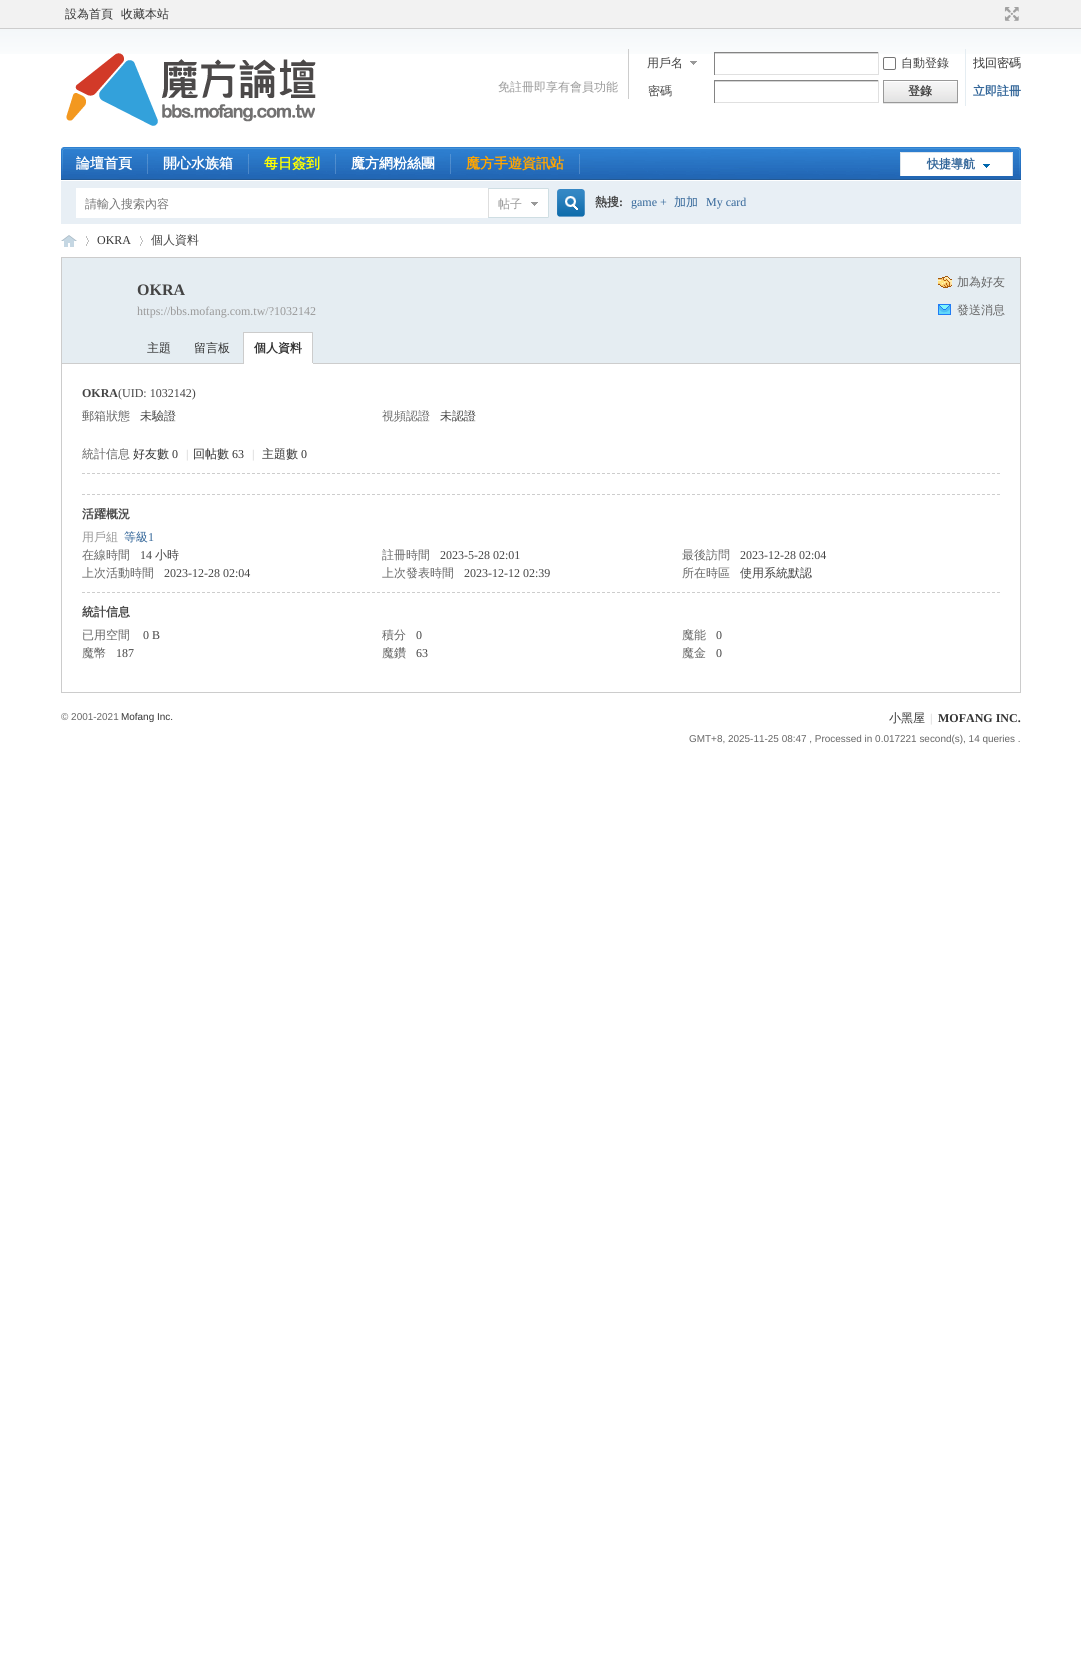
import math
import cairo

surface = cairo.ImageSurface(cairo.Format.RGB24, 1081, 1676)
ctx = cairo.Context(surface)
options = cairo.FontOptions()
options.set_hint_metrics(cairo.HintMetrics.OFF)
options.set_hint_style(cairo.HintStyle.NONE)
ctx.set_font_options(options)
ctx.set_miter_limit(4)


def ink(r, g, b):
    ctx.set_source_rgb(r / 255, g / 255, b / 255)


def write(x, y, s, family, size, color, bold=False, italic=False):
    ctx.select_font_face(family, cairo.FontSlant.ITALIC if italic else cairo.FontSlant.NORMAL, cairo.FontWeight.BOLD if bold else cairo.FontWeight.NORMAL)
    ctx.set_font_size(size)
    ink(*color)
    ctx.move_to(x, y)
    ctx.show_text(s)


def block(x, y, w, h, *color):
    ink(*color)
    ctx.rectangle(x, y, w, h)
    ctx.fill()


def round_path(x, y, w, h, r):
    ctx.new_sub_path()
    for i, (u, v) in enumerate([(x + w - r, y + h - r), (x + r, y + h - r), (x + r, y + r), (x + w - r, y + r)]):
        ctx.arc(u, v, r, i * math.pi / 2, (i + 1) * math.pi / 2)
    ctx.close_path()


def paste(path, x, y, w, h):
    ctx.save()
    ctx.set_source_surface(cairo.ImageSurface.create_from_png(path), x, y)
    ctx.rectangle(x, y, w, h)
    ctx.fill()
    ctx.restore()


s1 = dict(family="WenQuanYi Zen Hei Medium", size=12, color=(51, 51, 51))
s2 = dict(family="WenQuanYi Zen Hei Medium", size=12, color=(153, 153, 153))
s3 = dict(family="WenQuanYi Zen Hei Medium", size=12, color=(68, 68, 68))
s4 = dict(family="WenQuanYi Zen Hei", size=12, color=(68, 68, 68), bold=True)
s5 = dict(family="WenQuanYi Zen Hei", size=12, color=(51, 102, 153), bold=True)
s6 = dict(family="WenQuanYi Zen Hei", size=14, color=(255, 255, 255), bold=True)
s7 = dict(family="WenQuanYi Zen Hei", size=14, color=(255, 255, 0), bold=True)
s8 = dict(family="WenQuanYi Zen Hei", size=14, color=(255, 165, 0), bold=True)
s9 = dict(family="Liberation Serif", size=12, color=(68, 68, 68), bold=True)
s10 = dict(family="Liberation Serif", size=12, color=(51, 102, 153))
s11 = dict(family="WenQuanYi Zen Hei Medium", size=12, color=(51, 102, 153))
s12 = dict(family="WenQuanYi Zen Hei Medium", size=12, color=(117, 117, 117))
s13 = dict(family="Liberation Serif", size=12, color=(51, 51, 51))
s14 = dict(family="Liberation Serif", size=16, color=(68, 68, 68), bold=True)
s15 = dict(family="Liberation Serif", size=12, color=(153, 153, 153))
s16 = dict(family="WenQuanYi Zen Hei Medium", size=12, color=(102, 102, 102))
s17 = dict(family="WenQuanYi Zen Hei", size=12, color=(51, 51, 51), bold=True)
s18 = dict(family="Liberation Serif", size=12, color=(68, 68, 68))
s19 = dict(family="Liberation Serif", size=12, color=(204, 204, 204))
s20 = dict(family="Liberation Sans", size=9.95, color=(102, 102, 102))
s21 = dict(family="Liberation Sans", size=9.95, color=(51, 51, 51))
s22 = dict(family="Liberation Serif", size=12, color=(51, 51, 51), bold=True)

ink(255, 255, 255)
ctx.paint()
paste("pic1.png", 0, 29, 1081, 25)
block(0, 0, 1081, 28, 242, 242, 242)
block(0, 28, 1081, 1, 205, 205, 205)
write(65, 18, "設為首頁", **s1)
write(121, 18, "收藏本站", **s1)
paste("pic2.png", 1004, 7, 15, 14)
paste("pic3.png", 66, 53, 250, 73)
block(628, 49, 1, 50, 205, 205, 205)
write(498, 91, "免註冊即享有會員功能", **s2)
paste("pic4.png", 690, 61, 7, 4)
write(647, 67, "用戶名", **s3)
block(714, 53, 165, 1, 212, 212, 212)
block(714, 52, 165, 1, 132, 132, 132)
block(878, 52, 1, 23, 224, 224, 224)
block(714, 74, 165, 1, 224, 224, 224)
block(714, 52, 1, 23, 132, 132, 132)
round_path(883.5, 57.5, 12, 12, 1.5)
ink(118, 118, 118)
ctx.set_line_width(1)
ctx.stroke()
write(901, 67, "自動登錄", **s3)
write(973, 67, "找回密碼", **s1)
write(648, 95, "密碼", **s3)
block(714, 81, 165, 1, 212, 212, 212)
block(714, 80, 165, 1, 132, 132, 132)
block(878, 80, 1, 23, 224, 224, 224)
block(714, 102, 165, 1, 224, 224, 224)
block(714, 80, 1, 23, 132, 132, 132)
block(965, 49, 1, 57, 229, 237, 242)
block(883, 103, 75, 1, 229, 229, 229)
paste("pic5.png", 884, 81, 73, 21)
ctx.rectangle(883.5, 80.5, 74, 22)
ink(153, 153, 153)
ctx.stroke()
write(908, 95, "登錄", **s4)
write(973, 95, "立即註冊", **s5)
paste("pic6.png", 61, 147, 960, 33)
paste("pic7.png", 147, 154, 1, 20)
write(76, 168, "論壇首頁", **s6)
paste("pic7.png", 248, 154, 1, 20)
write(163, 168, "開心水族箱", **s6)
paste("pic7.png", 335, 154, 1, 20)
write(264, 168, "每日簽到", **s7)
paste("pic7.png", 450, 154, 1, 20)
write(351, 168, "魔方網粉絲團", **s6)
paste("pic7.png", 579, 154, 1, 20)
write(466, 168, "魔方手遊資訊站", **s8)
paste("pic8.png", 900, 152, 113, 24)
write(927, 168, "快捷導航", **s5)
block(61, 181, 960, 43, 232, 239, 245)
block(76, 188, 412, 30, 255, 255, 255)
paste("pic9.png", 557, 189, 28, 28)
write(595, 206, "熱搜", **s4)
write(619, 206, ":", **s9)
write(631, 206, "game +", **s10)
write(674, 206, "加加", **s11)
write(706, 206, "My card", **s10)
ctx.save()
ctx.rectangle(85, 196, 400, 17)
ctx.clip()
write(85, 208, "請輸入搜索內容", **s12)
ctx.restore()
paste("pic10.png", 488, 188, 61, 30)
write(498, 208, "帖子", **s2)
paste("pic11.png", 61, 235, 16, 12)
paste("pic12.png", 86, 236, 3, 10)
write(97, 244, "OKRA", **s13)
paste("pic12.png", 140, 236, 3, 10)
write(151, 244, "個人資料", **s3)
block(62, 258, 958, 105, 229, 237, 242)
block(61, 257, 960, 1, 204, 204, 204)
block(1020, 257, 1, 436, 204, 204, 204)
block(61, 257, 1, 107, 204, 204, 204)
write(137, 295, "OKRA", **s14)
write(137, 315, "https://bbs.mofang.com.tw/?1032142", **s15)
paste("pic13.png", 938, 276, 14, 12)
write(957, 286, "加為好友", **s16)
paste("pic14.png", 938, 304, 13, 11)
write(957, 314, "發送消息", **s16)
block(62, 363, 958, 1, 205, 205, 205)
write(147, 352, "主題", **s1)
write(194, 352, "留言板", **s1)
block(244, 333, 68, 30, 255, 255, 255)
block(243, 332, 70, 1, 204, 204, 204)
block(312, 332, 1, 32, 204, 204, 204)
block(243, 363, 70, 1, 255, 255, 255)
block(243, 332, 1, 32, 204, 204, 204)
write(254, 352, "個人資料", **s17)
block(61, 692, 960, 1, 204, 204, 204)
block(61, 364, 1, 329, 204, 204, 204)
ctx.new_path()
ctx.move_to(82, 494.5)
ctx.line_to(1000, 494.5)
ink(205, 205, 205)
ctx.set_dash([3, 2])
ctx.stroke()
write(82, 397, "OKRA", **s9)
write(118, 397, "(UID: 1032142)", **s18)
write(82, 420, "郵箱狀態", **s16)
write(140, 420, "未驗證", **s3)
write(382, 420, "視頻認證", **s16)
write(440, 420, "未認證", **s3)
ctx.new_path()
ctx.move_to(82, 473.5)
ctx.line_to(1000, 473.5)
ink(205, 205, 205)
ctx.stroke()
write(82, 458, "統計信息", **s16)
write(133, 458, "好友數", **s1)
write(172, 458, "0", **s13)
write(186, 458, "|", **s19)
write(193, 458, "回帖數", **s1)
write(232, 458, "63", **s13)
write(252, 458, "|", **s19)
write(262, 458, "主題數", **s1)
write(301, 458, "0", **s13)
ctx.new_path()
ctx.move_to(82, 592.5)
ctx.line_to(1000, 592.5)
ink(205, 205, 205)
ctx.stroke()
write(82, 518, "活躍概況", **s4)
write(82, 541, "用戶組", **s2)
write(124, 541, "等級", **s11)
write(148, 541, "1", **s10)
write(82, 559, "在線時間", **s16)
write(140, 559, "14", **s18)
write(155, 559, "小時", **s3)
write(382, 559, "註冊時間", **s16)
write(440, 559, "2023-5-28 02:01", **s18)
write(682, 559, "最後訪問", **s16)
write(740, 559, "2023-12-28 02:04", **s18)
write(82, 577, "上次活動時間", **s16)
write(164, 577, "2023-12-28 02:04", **s18)
write(382, 577, "上次發表時間", **s16)
write(464, 577, "2023-12-12 02:39", **s18)
write(682, 577, "所在時區", **s16)
write(740, 577, "使用系統默認", **s3)
write(82, 616, "統計信息", **s4)
write(82, 639, "已用空間", **s16)
write(143, 639, "0 B", **s18)
write(382, 639, "積分", **s16)
write(416, 639, "0", **s18)
write(682, 639, "魔能", **s16)
write(716, 639, "0", **s18)
write(82, 657, "魔幣", **s16)
write(116, 657, "187", **s18)
write(382, 657, "魔鑽", **s16)
write(416, 657, "63", **s18)
write(682, 657, "魔金", **s16)
write(716, 657, "0", **s18)
write(61, 720, "© 2001-2021", **s20)
write(121, 720, "Mofang Inc.", **s21)
write(889, 722, "小黑屋", **s1)
write(930, 722, "|", **s19)
write(938, 722, "MOFANG INC.", **s22)
write(689, 742, "GMT+8, 2025-11-25 08:47 , Processed in 0.017221 second(s), 14 queries .", **s20)
surface.write_to_png("screenshot.png")
